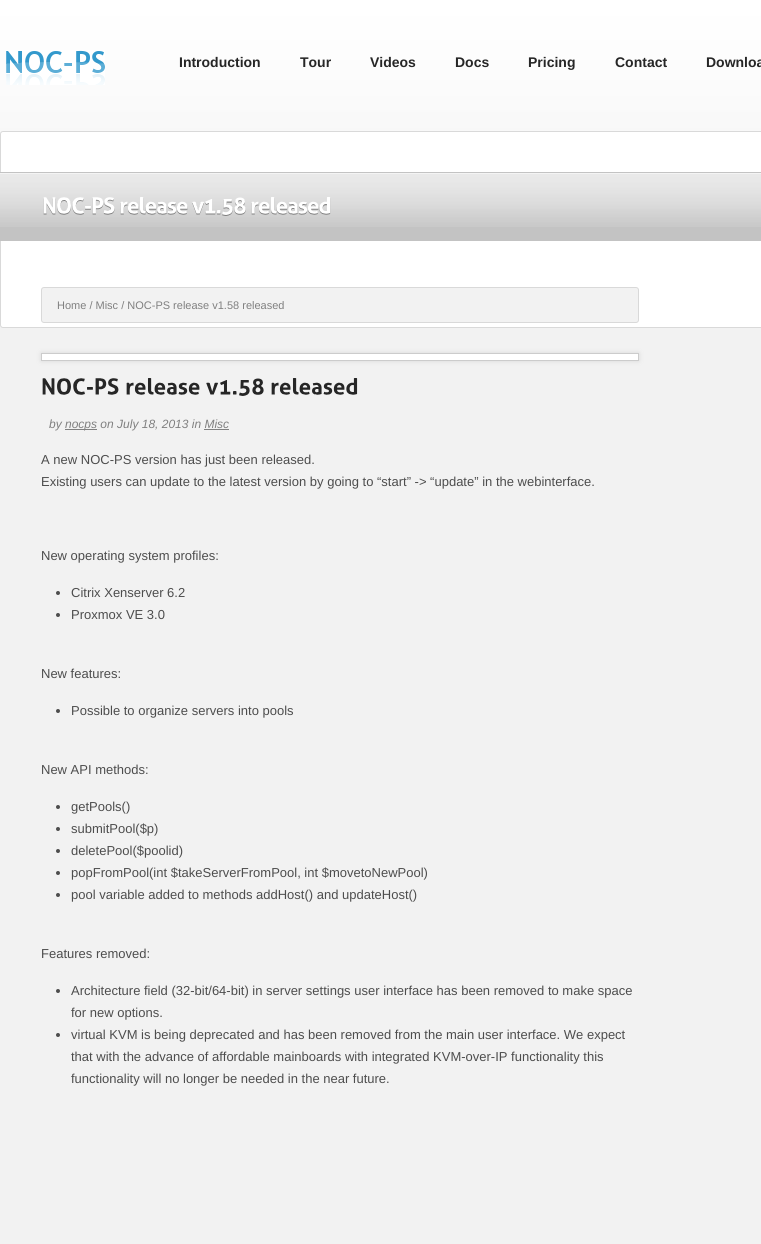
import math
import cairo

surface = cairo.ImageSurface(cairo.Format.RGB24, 761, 1244)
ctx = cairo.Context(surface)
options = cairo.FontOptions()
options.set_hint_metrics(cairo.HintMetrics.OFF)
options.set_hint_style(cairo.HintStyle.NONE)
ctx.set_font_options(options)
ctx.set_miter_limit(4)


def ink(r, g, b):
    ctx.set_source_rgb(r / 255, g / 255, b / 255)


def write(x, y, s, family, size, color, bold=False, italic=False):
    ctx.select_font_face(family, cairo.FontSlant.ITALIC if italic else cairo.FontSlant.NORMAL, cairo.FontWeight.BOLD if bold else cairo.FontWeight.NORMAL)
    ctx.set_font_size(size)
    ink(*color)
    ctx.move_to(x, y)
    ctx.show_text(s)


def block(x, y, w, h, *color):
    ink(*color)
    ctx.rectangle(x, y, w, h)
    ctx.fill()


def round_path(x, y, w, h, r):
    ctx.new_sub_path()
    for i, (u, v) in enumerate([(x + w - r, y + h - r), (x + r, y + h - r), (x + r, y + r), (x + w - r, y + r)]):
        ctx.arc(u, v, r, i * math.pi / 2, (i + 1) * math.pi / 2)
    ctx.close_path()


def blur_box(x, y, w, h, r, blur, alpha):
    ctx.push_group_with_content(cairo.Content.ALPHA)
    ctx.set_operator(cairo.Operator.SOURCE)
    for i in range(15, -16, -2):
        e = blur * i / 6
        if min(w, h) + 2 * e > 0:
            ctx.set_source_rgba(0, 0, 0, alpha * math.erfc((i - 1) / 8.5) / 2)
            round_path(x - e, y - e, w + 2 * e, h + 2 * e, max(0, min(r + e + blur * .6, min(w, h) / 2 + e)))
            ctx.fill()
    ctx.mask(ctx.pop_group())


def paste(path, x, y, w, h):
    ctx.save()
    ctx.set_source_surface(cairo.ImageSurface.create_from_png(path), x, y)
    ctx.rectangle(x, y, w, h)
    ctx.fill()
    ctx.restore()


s1 = dict(family="Liberation Sans", size=14, color=(38, 38, 38), bold=True)
s2 = dict(family="Liberation Sans", size=11, color=(128, 128, 128))
s3 = dict(family="Liberation Sans", size=12, color=(128, 128, 128), italic=True)
s4 = dict(family="Liberation Sans", size=13, color=(77, 77, 77))

ink(242, 242, 242)
ctx.paint()
paste("pic1.png", 0, 0, 761, 134)
paste("pic2.png", 6, 50, 99, 35)
write(179, 67, "Introduction", **s1)
write(300, 67, "Tour", **s1)
write(370, 67, "Videos", **s1)
write(455, 67, "Docs", **s1)
write(528, 67, "Pricing", **s1)
write(615, 67, "Contact", **s1)
write(706, 67, "Downloa", **s1)
ink(255, 255, 255)
round_path(0.5, 131.5, 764, 196, 2.5)
ctx.fill_preserve()
ink(217, 217, 217)
ctx.set_line_width(1)
ctx.stroke()
block(0, 172, 761, 69, 195, 195, 195)
paste("pic3.png", 0, 173, 761, 54)
paste("pic4.png", 43, 197, 72, 18)
paste("pic5.png", 120, 197, 68, 18)
paste("pic6.png", 192, 197, 54, 19)
paste("pic7.png", 251, 197, 80, 18)
ink(242, 242, 242)
round_path(41.5, 287.5, 597, 35, 2.5)
ctx.fill_preserve()
ink(217, 217, 217)
ctx.stroke()
write(57, 309, "Home / Misc / NOC-PS release v1.58 released", **s2)
ink(217, 217, 217)
blur_box(41, 353, 598, 8, 0, 2.5, 1)
ink(255, 255, 255)
ctx.rectangle(41.5, 353.5, 597, 7)
ctx.fill_preserve()
ink(204, 204, 204)
ctx.stroke()
paste("pic8.png", 42, 378, 77, 17)
paste("pic9.png", 126, 378, 74, 17)
paste("pic10.png", 206, 378, 58, 18)
paste("pic11.png", 271, 378, 87, 17)
write(49, 428, "by", **s3)
block(65, 429, 32, 1, 128, 128, 128)
write(65, 428, "nocps on July 18, 2013 in Misc", **s3)
block(204, 429, 25, 1, 128, 128, 128)
write(41, 464, "A new NOC-PS version has just been released.", **s4)
write(41, 486, "Existing users can update to the latest version by going to “start” -> “update” in the webinterface.", **s4)
write(41, 560, "New operating system profiles:", **s4)
ctx.new_path()
ctx.arc(58, 593, 2, 0, 2 * math.pi)
ctx.fill()
write(71, 597, "Citrix Xenserver 6.2", **s4)
ctx.new_path()
ctx.arc(58, 615, 2, 0, 2 * math.pi)
ctx.fill()
write(71, 619, "Proxmox VE 3.0", **s4)
write(41, 678, "New features:", **s4)
ctx.new_path()
ctx.arc(58, 711, 2, 0, 2 * math.pi)
ctx.fill()
write(71, 715, "Possible to organize servers into pools", **s4)
write(41, 774, "New API methods:", **s4)
ctx.new_path()
ctx.arc(58, 807, 2, 0, 2 * math.pi)
ctx.fill()
write(71, 811, "getPools()", **s4)
ctx.new_path()
ctx.arc(58, 829, 2, 0, 2 * math.pi)
ctx.fill()
write(71, 833, "submitPool($p)", **s4)
ctx.new_path()
ctx.arc(58, 851, 2, 0, 2 * math.pi)
ctx.fill()
write(71, 855, "deletePool($poolid)", **s4)
ctx.new_path()
ctx.arc(58, 873, 2, 0, 2 * math.pi)
ctx.fill()
write(71, 877, "popFromPool(int $takeServerFromPool, int $movetoNewPool)", **s4)
ctx.new_path()
ctx.arc(58, 895, 2, 0, 2 * math.pi)
ctx.fill()
write(71, 899, "pool variable added to methods addHost() and updateHost()", **s4)
write(41, 958, "Features removed:", **s4)
ctx.new_path()
ctx.arc(58, 991, 2, 0, 2 * math.pi)
ctx.fill()
write(71, 995, "Architecture field (32-bit/64-bit) in server settings user interface has been removed to make space", **s4)
write(71, 1017, "for new options.", **s4)
ctx.new_path()
ctx.arc(58, 1035, 2, 0, 2 * math.pi)
ctx.fill()
write(71, 1039, "virtual KVM is being deprecated and has been removed from the main user interface. We expect", **s4)
write(71, 1061, "that with the advance of affordable mainboards with integrated KVM-over-IP functionality this", **s4)
write(71, 1083, "functionality will no longer be needed in the near future.", **s4)
surface.write_to_png("screenshot.png")
